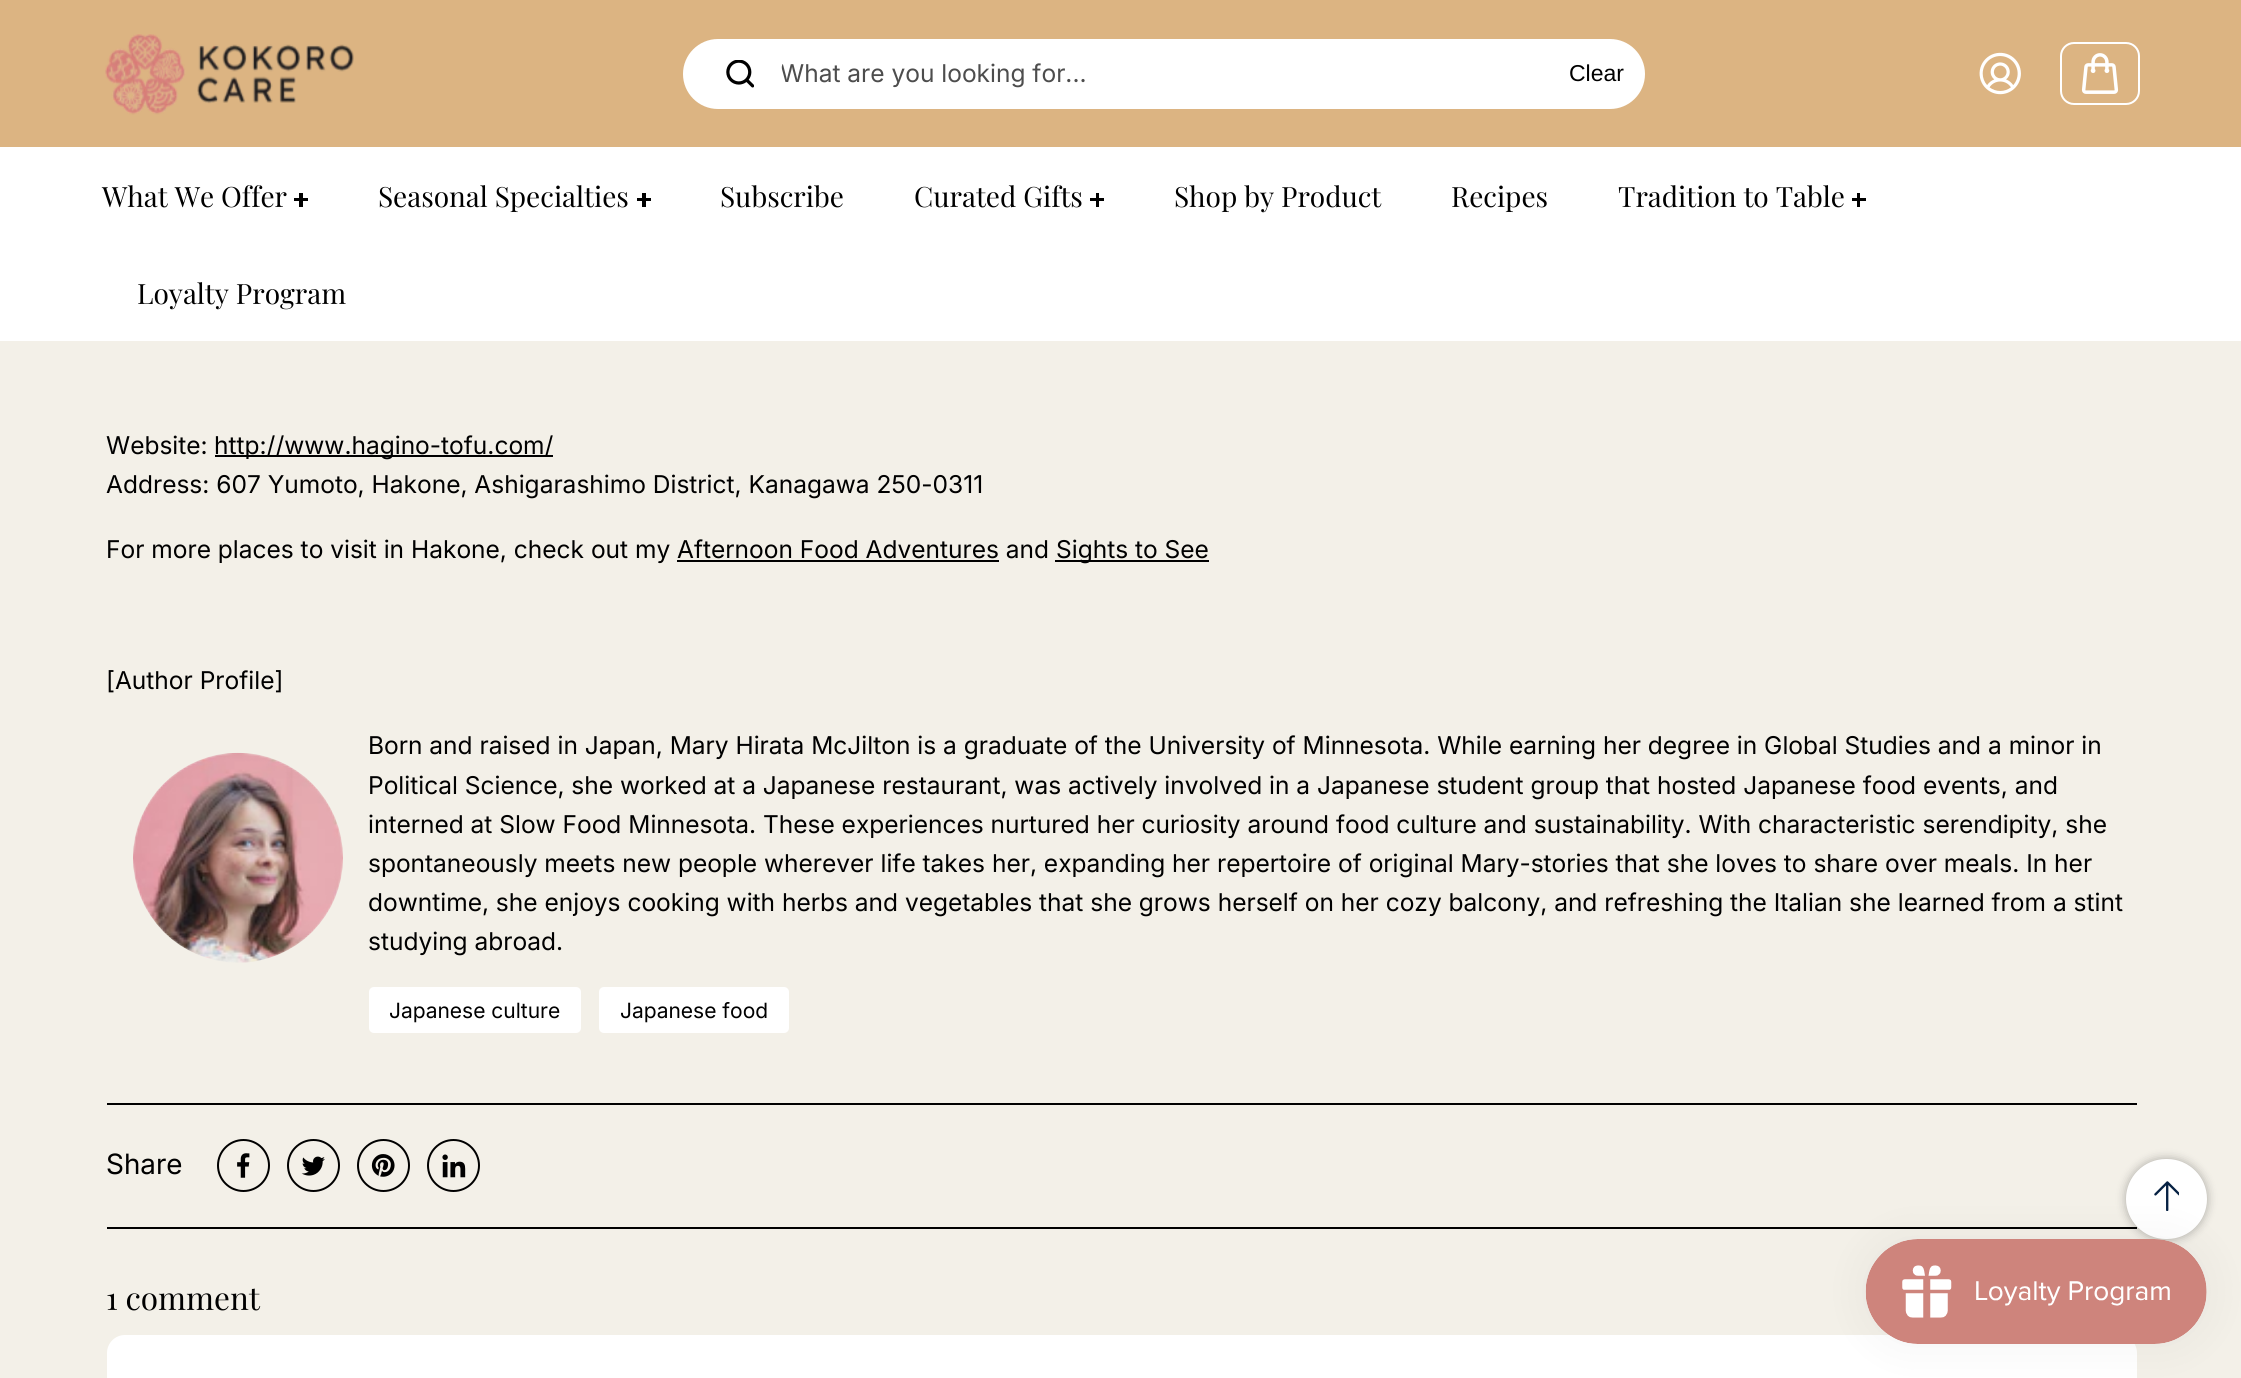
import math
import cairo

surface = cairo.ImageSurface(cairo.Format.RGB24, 2241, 1378)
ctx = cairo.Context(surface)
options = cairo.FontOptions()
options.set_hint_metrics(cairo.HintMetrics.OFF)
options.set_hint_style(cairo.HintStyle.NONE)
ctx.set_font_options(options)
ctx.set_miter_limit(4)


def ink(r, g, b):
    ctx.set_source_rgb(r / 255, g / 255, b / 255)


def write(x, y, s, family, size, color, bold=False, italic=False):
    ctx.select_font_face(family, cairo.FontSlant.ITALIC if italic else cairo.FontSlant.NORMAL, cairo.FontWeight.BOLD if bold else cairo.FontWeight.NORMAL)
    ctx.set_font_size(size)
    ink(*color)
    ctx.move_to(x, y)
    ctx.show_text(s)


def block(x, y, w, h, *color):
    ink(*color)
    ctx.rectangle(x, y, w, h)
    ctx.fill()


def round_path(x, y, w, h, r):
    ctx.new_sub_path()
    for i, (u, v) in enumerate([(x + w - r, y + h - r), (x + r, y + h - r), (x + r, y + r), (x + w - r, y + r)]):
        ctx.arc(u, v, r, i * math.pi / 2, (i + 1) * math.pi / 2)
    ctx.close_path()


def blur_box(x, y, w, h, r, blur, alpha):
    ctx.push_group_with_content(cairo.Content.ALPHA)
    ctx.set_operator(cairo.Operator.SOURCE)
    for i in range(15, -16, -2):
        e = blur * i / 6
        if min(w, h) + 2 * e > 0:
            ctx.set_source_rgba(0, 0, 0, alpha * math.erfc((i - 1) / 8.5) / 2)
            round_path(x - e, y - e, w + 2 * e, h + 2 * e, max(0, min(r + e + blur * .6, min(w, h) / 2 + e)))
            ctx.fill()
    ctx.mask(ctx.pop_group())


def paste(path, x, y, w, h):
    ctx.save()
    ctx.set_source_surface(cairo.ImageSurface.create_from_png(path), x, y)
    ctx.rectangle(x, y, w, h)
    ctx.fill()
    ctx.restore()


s1 = dict(family="Inter", size=24.5, color=(77, 77, 77))
s2 = dict(family="Liberation Sans", size=23, color=(0, 0, 0))
s3 = dict(family="Playfair Display", size=28, color=(0, 0, 0))
s4 = dict(family="Inter", size=24.5, color=(0, 0, 0))
s5 = dict(family="Inter", size=21, color=(0, 0, 0))
s6 = dict(family="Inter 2", size=28, color=(0, 0, 0))
s7 = dict(family="Playfair Display", size=31.5, color=(0, 0, 0))

ink(243, 240, 232)
ctx.paint()
block(0, 0, 2241, 147, 220, 180, 130)
paste("pic1.png", 105, 34, 249, 81)
ink(255, 255, 255)
round_path(683, 39, 962, 70, 35)
ctx.fill()
paste("pic2.png", 726, 60, 28, 28)
ctx.save()
round_path(781, 39, 763, 70, 35)
ctx.clip()
write(780, 82, "What are you looking for...", **s1)
ctx.restore()
write(1569, 81, "Clear", **s2)
paste("pic3.png", 1979, 52, 42, 43)
round_path(2061, 43, 78, 61, 13)
ink(255, 255, 255)
ctx.stroke()
paste("pic4.png", 2081, 53, 38, 41)
block(0, 147, 2241, 194, 255, 255, 255)
write(102, 207, "What We Offer", **s3)
block(294, 198, 14, 3, 0, 0, 0)
block(299, 193, 4, 14, 0, 0, 0)
write(378, 207, "Seasonal Specialties", **s3)
block(637, 198, 14, 3, 0, 0, 0)
block(642, 193, 4, 14, 0, 0, 0)
write(720, 207, "Subscribe", **s3)
write(914, 207, "Curated Gifts", **s3)
block(1090, 198, 14, 3, 0, 0, 0)
block(1096, 193, 3, 14, 0, 0, 0)
write(1174, 207, "Shop by Product", **s3)
write(1451, 207, "Recipes", **s3)
write(1618, 207, "Tradition to Table", **s3)
block(1852, 198, 14, 3, 0, 0, 0)
block(1857, 193, 3, 14, 0, 0, 0)
write(137, 304, "Loyalty Program", **s3)
write(106, 454, "Website:", **s4)
block(215, 455, 338, 2, 0, 0, 0)
write(214, 454, "http://www.hagino-tofu.com/", **s4)
write(106, 493, "Address: 607 Yumoto, Hakone, Ashigarashimo District, Kanagawa 250-0311", **s4)
write(106, 558, "For more places to visit in Hakone, check out my Afternoon Food Adventures and", **s4)
block(1055, 560, 154, 2, 0, 0, 0)
write(1056, 558, "Sights to See", **s4)
block(677, 560, 322, 2, 0, 0, 0)
write(106, 689, "[Author Profile]", **s4)
paste("pic5.png", 133, 752, 210, 211)
write(368, 754, "Born and raised in Japan, Mary Hirata McJilton is a graduate of the University of Minnesota. While earning her degree in Global Studies and a minor in", **s4)
write(368, 794, "Political Science, she worked at a Japanese restaurant, was actively involved in a Japanese student group that hosted Japanese food events, and", **s4)
write(368, 833, "interned at Slow Food Minnesota. These experiences nurtured her curiosity around food culture and sustainability. With characteristic serendipity, she", **s4)
write(368, 872, "spontaneously meets new people wherever life takes her, expanding her repertoire of original Mary-stories that she loves to share over meals. In her", **s4)
write(368, 911, "downtime, she enjoys cooking with herbs and vegetables that she grows herself on her cozy balcony, and refreshing the Italian she learned from a stint", **s4)
write(368, 950, "studying abroad.", **s4)
ink(255, 255, 255)
round_path(369, 987, 212, 46, 5)
ctx.fill()
write(389, 1018, "Japanese culture", **s5)
ink(255, 255, 255)
round_path(599, 987, 190, 46, 5)
ctx.fill()
write(620, 1018, "Japanese food", **s5)
block(107, 1103, 2030, 2, 0, 0, 0)
block(107, 1227, 2030, 2, 0, 0, 0)
write(106, 1174, "Share", **s6)
ctx.new_path()
ctx.arc(243.5, 1165.5, 25.5, 0, 2 * math.pi)
ctx.stroke()
paste("pic6.png", 237, 1153, 13, 25)
ctx.arc(313.5, 1165.5, 25.5, 0, 2 * math.pi)
ctx.stroke()
paste("pic7.png", 301, 1156, 24, 20)
ctx.arc(383.5, 1165.5, 25.5, 0, 2 * math.pi)
ctx.stroke()
paste("pic8.png", 371, 1154, 24, 23)
ctx.arc(453.5, 1165.5, 25.5, 0, 2 * math.pi)
ctx.stroke()
paste("pic9.png", 442, 1154, 24, 24)
write(106, 1310, "1 comment", **s7)
ink(255, 255, 255)
round_path(107, 1335, 2030, 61, 18)
ctx.fill()
ink(0, 0, 0)
blur_box(2126, 1159, 81, 80, 40, 5, 0.3)
ink(255, 255, 255)
round_path(2126, 1159, 81, 80, 40)
ctx.fill()
paste("pic10.png", 2154, 1181, 25, 30)
ink(0, 0, 0)
blur_box(1866, 1239, 341, 105, 52.5, 22, 0.05)
paste("pic11.png", 1865, 1239, 342, 105)
surface.write_to_png("screenshot.png")
